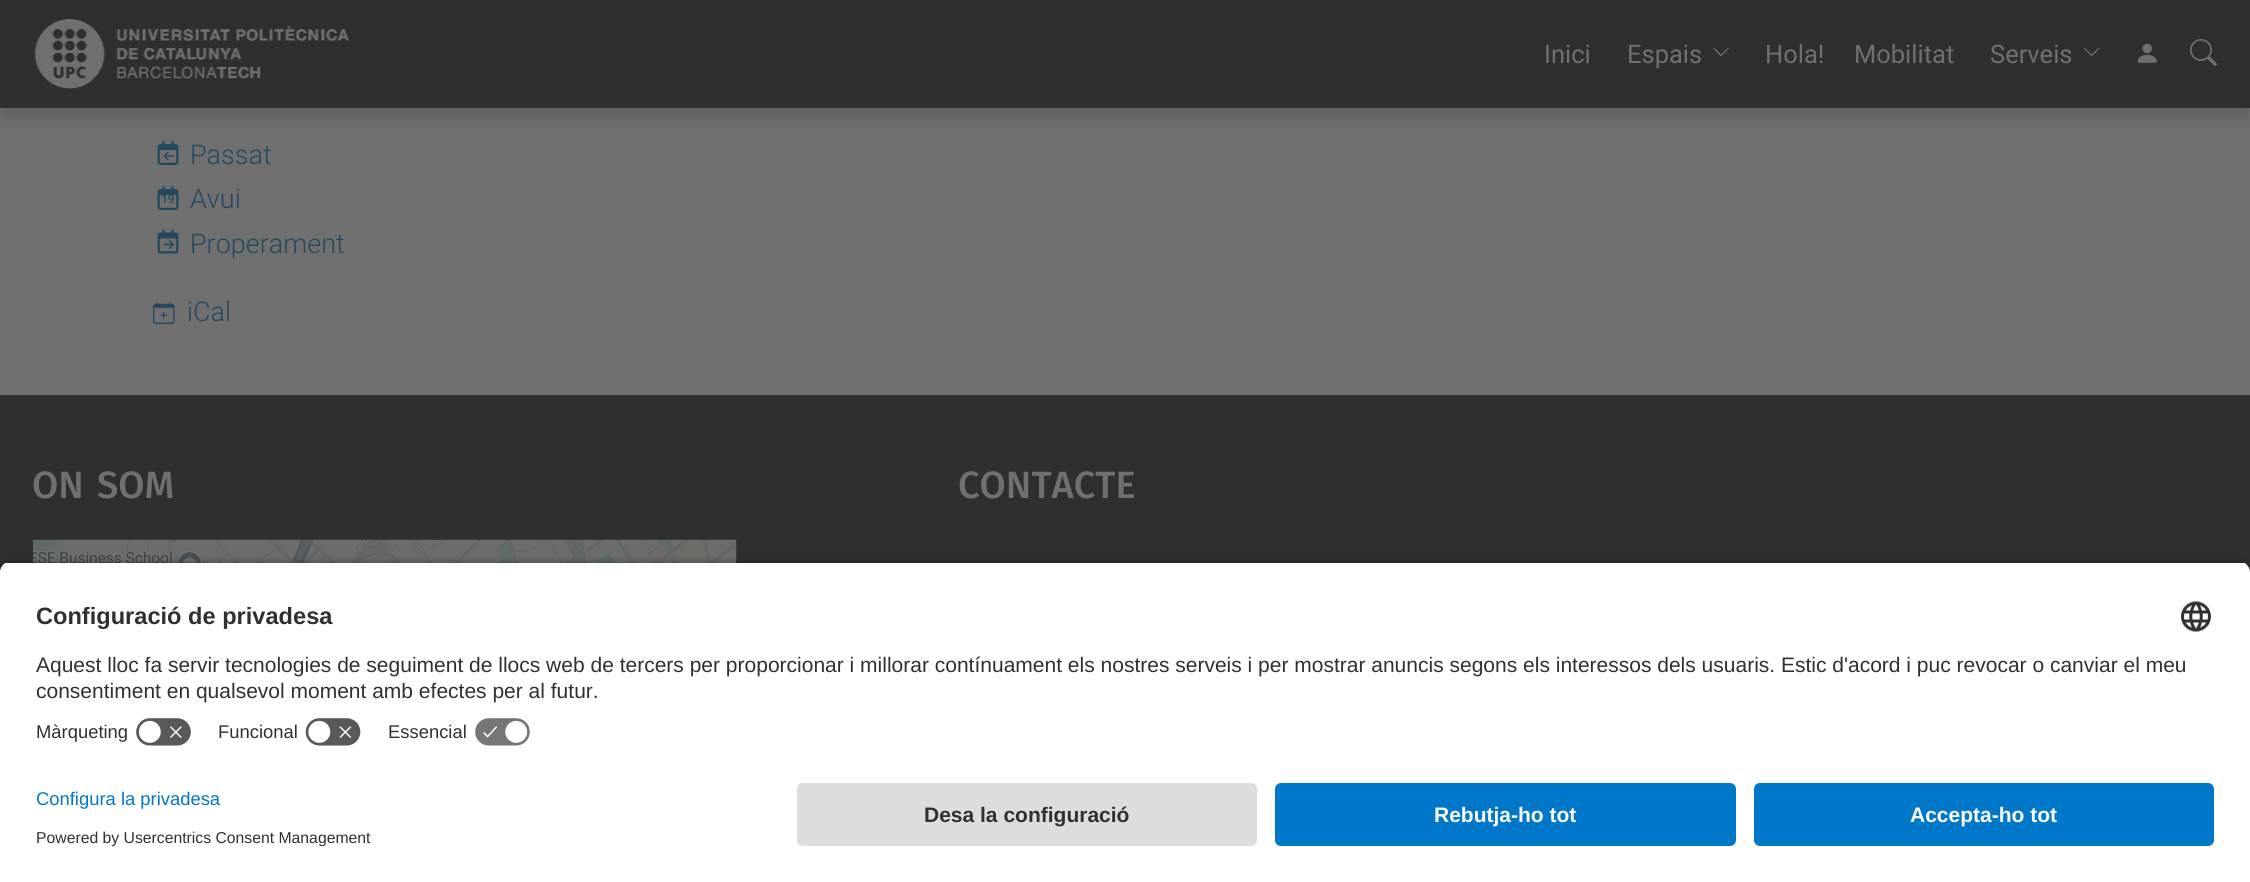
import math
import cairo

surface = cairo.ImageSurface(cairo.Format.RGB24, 2250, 882)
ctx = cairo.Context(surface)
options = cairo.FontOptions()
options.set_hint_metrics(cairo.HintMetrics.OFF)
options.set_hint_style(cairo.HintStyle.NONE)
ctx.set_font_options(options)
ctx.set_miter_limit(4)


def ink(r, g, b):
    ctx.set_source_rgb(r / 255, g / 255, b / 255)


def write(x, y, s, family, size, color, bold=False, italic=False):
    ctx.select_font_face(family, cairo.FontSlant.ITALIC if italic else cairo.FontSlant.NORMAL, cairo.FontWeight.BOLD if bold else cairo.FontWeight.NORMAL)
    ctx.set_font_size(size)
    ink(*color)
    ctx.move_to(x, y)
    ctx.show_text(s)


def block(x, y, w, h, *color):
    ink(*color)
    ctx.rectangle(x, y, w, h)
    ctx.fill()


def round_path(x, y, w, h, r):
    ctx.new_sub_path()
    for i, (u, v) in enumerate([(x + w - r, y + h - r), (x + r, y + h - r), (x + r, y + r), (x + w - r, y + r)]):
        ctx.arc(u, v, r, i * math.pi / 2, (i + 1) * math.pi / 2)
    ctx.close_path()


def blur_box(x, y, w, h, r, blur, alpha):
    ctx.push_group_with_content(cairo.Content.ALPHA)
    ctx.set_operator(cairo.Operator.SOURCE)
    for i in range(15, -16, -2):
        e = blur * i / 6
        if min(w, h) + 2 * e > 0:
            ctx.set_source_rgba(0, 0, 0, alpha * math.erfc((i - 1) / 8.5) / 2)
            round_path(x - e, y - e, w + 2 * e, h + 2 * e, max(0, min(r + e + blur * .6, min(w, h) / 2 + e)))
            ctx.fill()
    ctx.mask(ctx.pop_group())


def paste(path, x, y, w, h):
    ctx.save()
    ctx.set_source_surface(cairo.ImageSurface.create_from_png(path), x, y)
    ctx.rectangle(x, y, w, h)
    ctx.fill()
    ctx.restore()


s1 = dict(family="Roboto", size=25.5, color=(112, 112, 112))
s2 = dict(family="Roboto Light", size=27, color=(36, 73, 94))
s3 = dict(family="Roboto Medium", size=12, color=(36, 73, 94))
s4 = dict(family="Fira Sans Medium", size=38, color=(112, 112, 112))
s5 = dict(family="Liberation Sans", size=23.6, color=(48, 48, 48), bold=True)
s6 = dict(family="Liberation Sans", size=21, color=(48, 48, 48))
s7 = dict(family="Liberation Sans", size=18.4, color=(48, 48, 48))
s8 = dict(family="Liberation Sans", size=18.4, color=(0, 119, 200))
s9 = dict(family="Liberation Sans", size=15.75, color=(48, 48, 48))
s10 = dict(family="Liberation Sans", size=21, color=(48, 48, 48), bold=True)
s11 = dict(family="Liberation Sans", size=21, color=(250, 250, 250), bold=True)

ink(112, 112, 112)
ctx.paint()
ink(36, 36, 36)
blur_box(0, 11, 2250, 108, 0, 6, 0.2)
block(0, 0, 2250, 108, 46, 47, 48)
paste("pic1.png", 34, 19, 316, 70)
write(1544, 63, "Inici", **s1)
write(1627, 63, "Espais", **s1)
paste("pic2.png", 1713, 47, 16, 10)
write(1765, 63, "Hola!", **s1)
write(1854, 63, "Mobilitat", **s1)
write(1990, 63, "Serveis", **s1)
paste("pic3.png", 2083, 47, 17, 10)
paste("pic4.png", 2137, 43, 20, 20)
paste("pic5.png", 2190, 39, 27, 27)
paste("pic6.png", 157, 141, 22, 24)
paste("pic7.png", 163, 151, 11, 10)
write(190, 164, "Passat", **s2)
write(161, 203, "19", **s3)
paste("pic8.png", 157, 186, 22, 24)
write(190, 208, "Avui", **s2)
paste("pic9.png", 157, 229, 22, 25)
paste("pic10.png", 163, 240, 11, 9)
write(190, 253, "Properament", **s2)
paste("pic11.png", 153, 302, 22, 22)
write(187, 321, "iCal", **s2)
block(0, 395, 2250, 178, 46, 47, 48)
write(32, 498, "ON", **s4)
write(97, 498, "SOM", **s4)
paste("pic12.png", 33, 539, 704, 24)
write(958, 498, "CONTACTE", **s4)
ink(0, 0, 0)
blur_box(0, 566, 2250, 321, 12, 5, 0.8)
ctx.save()
ctx.new_path()
ctx.move_to(12, 561)
ctx.line_to(2238, 561)
ctx.curve_to(2244.5, 561, 2250, 566.5, 2250, 573)
ctx.line_to(2250, 771)
ctx.line_to(0, 771)
ctx.line_to(0, 573)
ctx.curve_to(0, 566.5, 5.5, 561, 12, 561)
ctx.close_path()
ctx.clip()
block(0, 563, 2250, 208, 255, 255, 255)
block(0, 563, 2250, 148, 255, 255, 255)
ctx.restore()
write(36, 624, "Configuració de privadesa", **s5)
paste("pic13.png", 2181, 601, 30, 31)
write(36, 672, "Aquest lloc fa servir tecnologies de seguiment de llocs web de tercers per proporcionar i millorar contínuament els nostres serveis i per mostrar anuncis segons els interessos dels usuaris. Estic d'acord i puc revocar o canviar el meu", **s6)
write(36, 698, "consentiment en qualsevol moment amb efectes per al futur.", **s6)
write(36, 738, "Màrqueting", **s7)
paste("pic14.png", 136, 718, 55, 28)
write(218, 738, "Funcional", **s7)
paste("pic15.png", 305, 718, 56, 28)
write(388, 738, "Essencial", **s7)
paste("pic16.png", 475, 718, 55, 28)
block(0, 771, 2250, 111, 255, 255, 255)
write(36, 805, "Configura la privadesa", **s8)
write(36, 843, "Powered by Usercentrics Consent Management", **s9)
ink(221, 221, 221)
round_path(797, 783, 460, 63, 6)
ctx.fill()
write(924, 822, "Desa la configuració", **s10)
ink(0, 119, 200)
round_path(1275, 783, 461, 63, 6)
ctx.fill()
write(1434, 822, "Rebutja-ho tot", **s11)
ink(0, 119, 200)
round_path(1754, 783, 460, 63, 6)
ctx.fill()
write(1910, 822, "Accepta-ho tot", **s11)
surface.write_to_png("screenshot.png")
